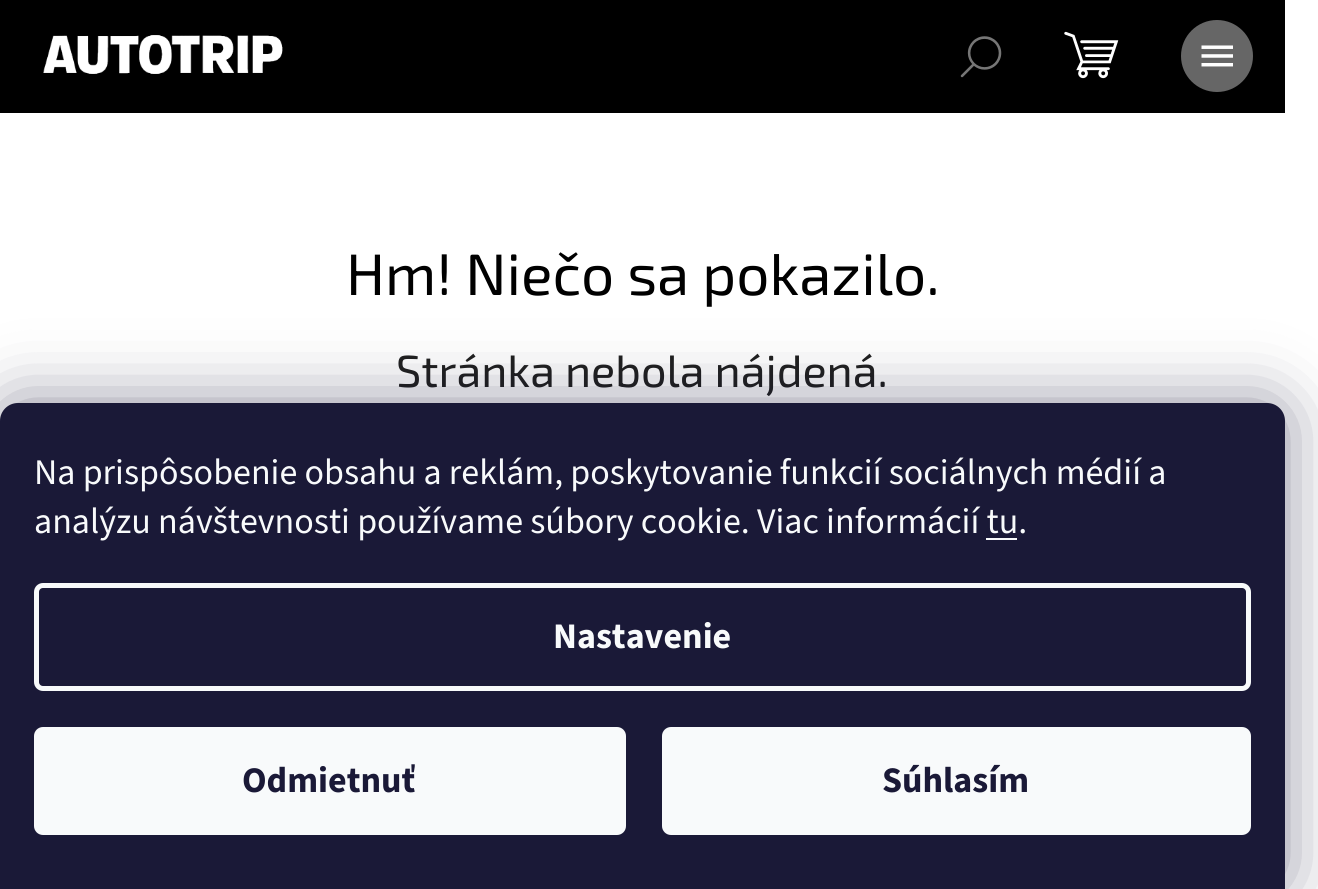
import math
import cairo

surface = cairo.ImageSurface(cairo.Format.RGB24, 1318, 889)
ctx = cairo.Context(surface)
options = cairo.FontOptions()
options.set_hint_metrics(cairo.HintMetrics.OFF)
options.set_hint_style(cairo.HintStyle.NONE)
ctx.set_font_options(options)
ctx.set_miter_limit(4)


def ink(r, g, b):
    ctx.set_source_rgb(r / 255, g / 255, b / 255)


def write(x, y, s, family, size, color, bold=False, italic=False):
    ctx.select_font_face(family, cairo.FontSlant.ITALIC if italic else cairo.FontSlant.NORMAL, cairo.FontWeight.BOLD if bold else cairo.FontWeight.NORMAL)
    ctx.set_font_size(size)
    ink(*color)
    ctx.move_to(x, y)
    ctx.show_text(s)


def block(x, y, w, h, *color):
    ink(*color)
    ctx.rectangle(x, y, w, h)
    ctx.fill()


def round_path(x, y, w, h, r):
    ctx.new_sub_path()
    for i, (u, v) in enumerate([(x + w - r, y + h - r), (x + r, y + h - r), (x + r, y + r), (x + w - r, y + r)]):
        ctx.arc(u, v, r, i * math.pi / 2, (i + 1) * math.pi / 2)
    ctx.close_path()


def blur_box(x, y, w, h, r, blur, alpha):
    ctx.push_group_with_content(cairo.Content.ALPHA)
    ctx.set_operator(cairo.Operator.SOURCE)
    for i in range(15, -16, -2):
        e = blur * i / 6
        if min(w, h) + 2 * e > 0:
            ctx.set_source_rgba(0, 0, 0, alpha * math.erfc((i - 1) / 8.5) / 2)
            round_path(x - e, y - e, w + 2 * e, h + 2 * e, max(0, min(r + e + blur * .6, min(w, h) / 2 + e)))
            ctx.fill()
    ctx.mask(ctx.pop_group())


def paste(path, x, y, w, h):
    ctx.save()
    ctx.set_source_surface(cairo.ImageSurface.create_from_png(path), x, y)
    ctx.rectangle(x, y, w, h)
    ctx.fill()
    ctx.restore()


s1 = dict(family="Exo 2", size=58.5, color=(0, 0, 0))
s2 = dict(family="Exo 2", size=45, color=(31, 31, 31))
s3 = dict(family="Source Sans 3", size=36, color=(248, 250, 251))
s4 = dict(family="Source Sans 3", size=36, color=(248, 250, 251), bold=True)
s5 = dict(family="Source Sans 3", size=36, color=(26, 25, 55), bold=True)

ink(255, 255, 255)
ctx.paint()
block(0, 0, 1285, 113, 0, 0, 0)
paste("pic1.png", 960, 36, 42, 42)
ink(102, 102, 102)
ctx.arc(1217, 56, 36, 0, 2 * math.pi)
ctx.fill()
paste("pic2.png", 1201, 45, 32, 22)
paste("pic3.png", 43, 35, 240, 39)
paste("pic4.png", 1064, 31, 55, 48)
write(346, 295, "Hm! Niečo sa pokazilo.", **s1)
write(396, 387, "Stránka nebola nájdená.", **s2)
ink(27, 25, 57)
blur_box(0, 403, 1285, 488, 18, 34, 0.5)
ink(26, 25, 55)
ctx.new_path()
ctx.move_to(18, 403)
ctx.line_to(1267, 403)
ctx.curve_to(1277, 403, 1285, 411, 1285, 421)
ctx.line_to(1285, 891)
ctx.line_to(0, 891)
ctx.line_to(0, 421)
ctx.curve_to(0, 411, 8, 403, 18, 403)
ctx.close_path()
ctx.fill()
write(34, 484, "Na prispôsobenie obsahu a reklám, poskytovanie funkcií sociálnych médií a", **s3)
write(34, 533, "analýzu návštevnosti používame súbory cookie. Viac informácií tu.", **s3)
block(986, 538, 31, 2, 248, 250, 251)
round_path(36.5, 585.5, 1212, 103, 6.5)
ctx.set_line_width(5)
ctx.stroke()
write(553, 648, "Nastavenie", **s4)
round_path(34, 727, 592, 108, 9)
ctx.fill()
write(242, 792, "Odmietnuť", **s5)
ink(248, 250, 251)
round_path(662, 727, 589, 108, 9)
ctx.fill()
write(882, 792, "Súhlasím", **s5)
surface.write_to_png("screenshot.png")
